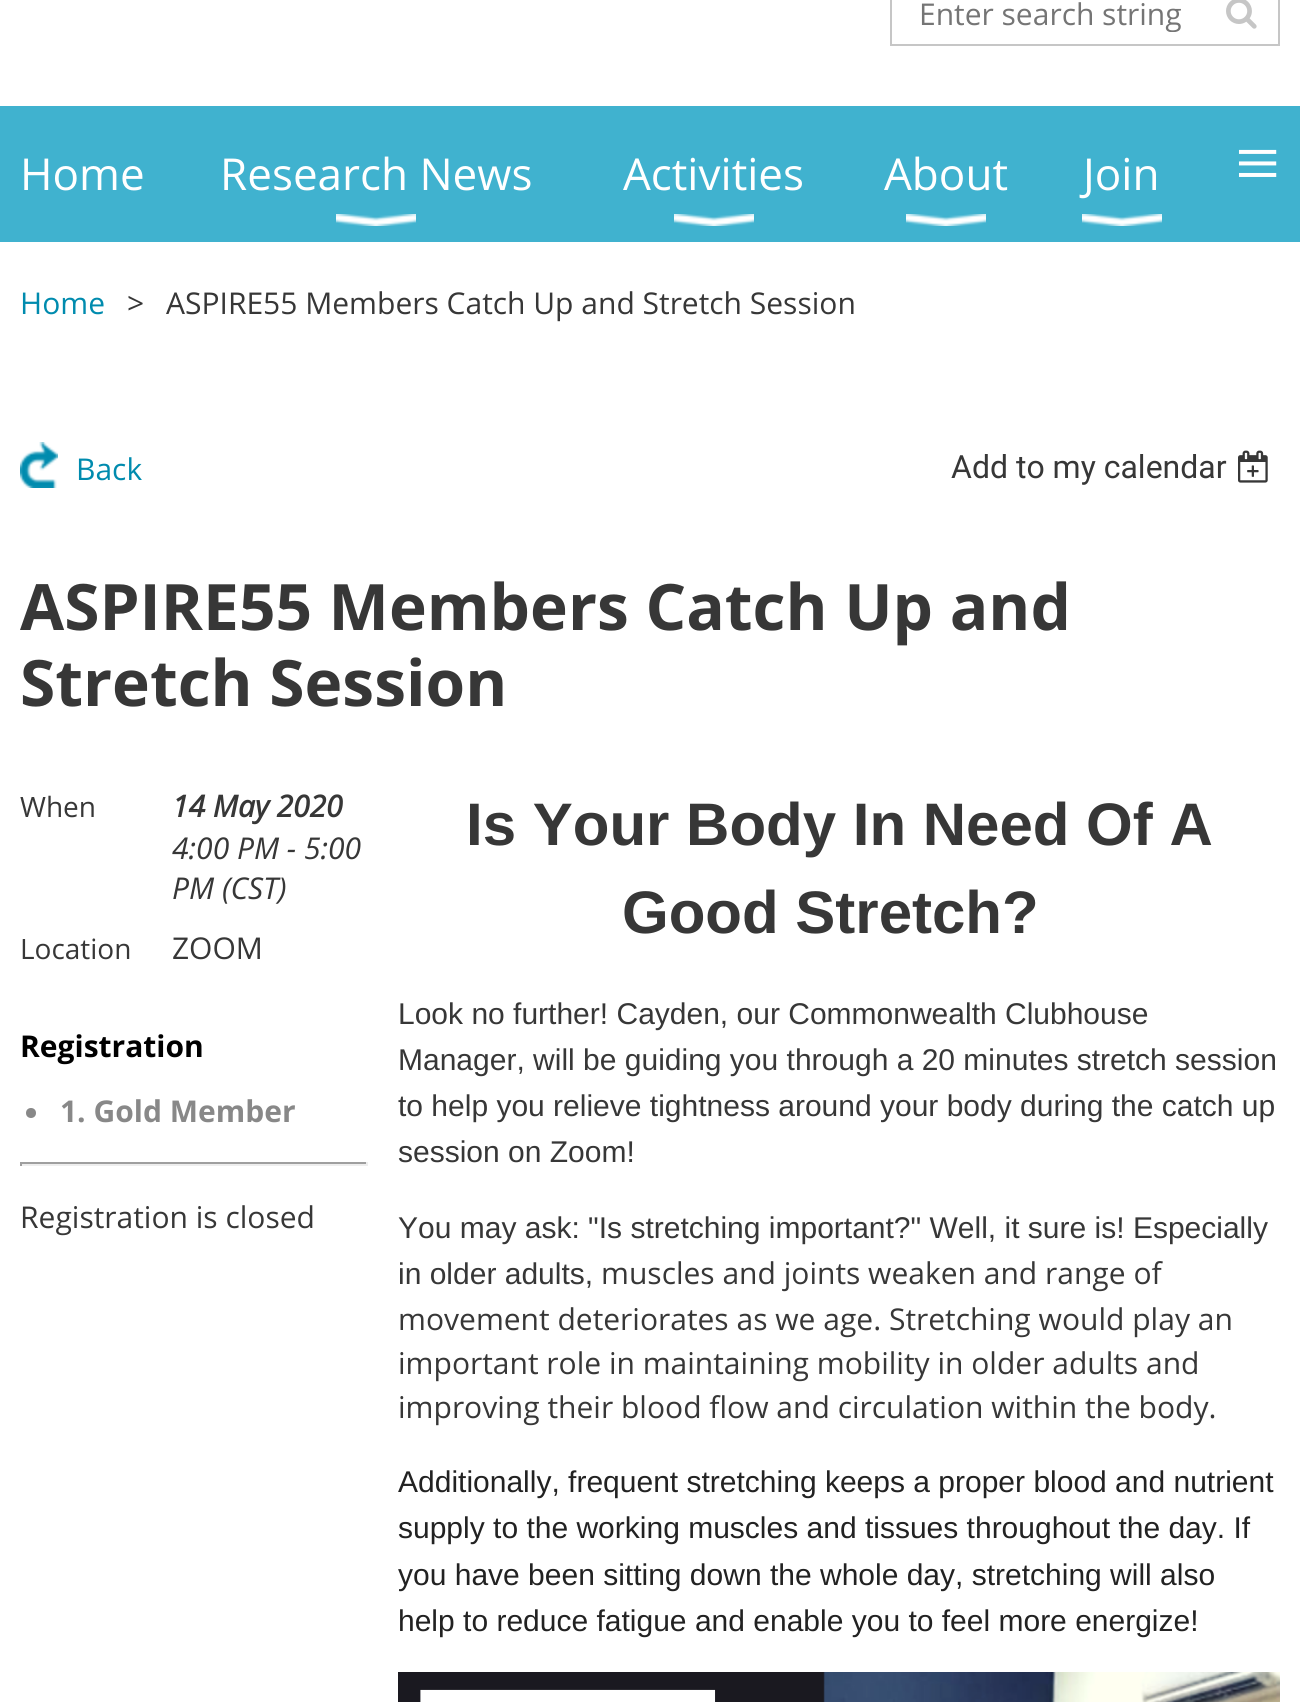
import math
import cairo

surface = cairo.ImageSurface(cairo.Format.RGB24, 1300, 1702)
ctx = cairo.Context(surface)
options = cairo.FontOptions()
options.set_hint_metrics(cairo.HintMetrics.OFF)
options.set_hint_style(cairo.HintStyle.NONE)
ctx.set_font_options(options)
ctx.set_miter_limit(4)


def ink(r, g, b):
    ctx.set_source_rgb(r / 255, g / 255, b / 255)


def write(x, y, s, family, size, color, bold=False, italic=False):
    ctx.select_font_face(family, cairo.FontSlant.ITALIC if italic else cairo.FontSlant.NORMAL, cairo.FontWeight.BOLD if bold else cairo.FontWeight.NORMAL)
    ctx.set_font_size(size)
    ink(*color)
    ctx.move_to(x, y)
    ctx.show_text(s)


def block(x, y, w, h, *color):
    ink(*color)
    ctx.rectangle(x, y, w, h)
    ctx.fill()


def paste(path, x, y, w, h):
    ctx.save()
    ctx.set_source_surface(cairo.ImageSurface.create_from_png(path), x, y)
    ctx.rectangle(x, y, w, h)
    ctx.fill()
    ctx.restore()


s1 = dict(family="Open Sans", size=30, color=(117, 117, 117))
s2 = dict(family="Open Sans", size=44, color=(255, 255, 255))
s3 = dict(family="Liberation Serif", size=80, color=(255, 255, 255))
s4 = dict(family="Open Sans", size=30, color=(0, 139, 174))
s5 = dict(family="Open Sans", size=30, color=(55, 55, 55))
s6 = dict(family="Roboto", size=32, color=(55, 55, 55))
s7 = dict(family="Open Sans", size=64, color=(55, 55, 55), bold=True)
s8 = dict(family="Open Sans", size=28, color=(55, 55, 55))
s9 = dict(family="Open Sans", size=30, color=(55, 55, 55), bold=True, italic=True)
s10 = dict(family="Open Sans", size=30, color=(55, 55, 55), italic=True)
s11 = dict(family="Open Sans", size=30, color=(0, 0, 0), bold=True)
s12 = dict(family="Open Sans", size=30, color=(136, 136, 136), bold=True)
s13 = dict(family="Liberation Sans", size=60, color=(55, 55, 55), bold=True)
s14 = dict(family="Liberation Sans", size=30, color=(55, 55, 55))
s15 = dict(family="Liberation Sans", size=30, color=(34, 34, 34))

ink(255, 255, 255)
ctx.paint()
ctx.rectangle(891, -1, 388, 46)
ink(198, 198, 198)
ctx.stroke()
ctx.save()
ctx.rectangle(920, 0, 288, 32)
ctx.clip()
write(919, 25, "Enter search string", **s1)
ctx.restore()
paste("pic1.png", 1226, 0, 31, 29)
block(0, 106, 1300, 136, 64, 178, 207)
write(20, 190, "Home", **s2)
write(220, 190, "Research News", **s2)
paste("pic2.png", 336, 214, 80, 12)
write(623, 190, "Activities", **s2)
paste("pic2.png", 674, 214, 80, 12)
write(884, 190, "About", **s2)
paste("pic2.png", 906, 214, 80, 12)
write(1083, 190, "Join", **s2)
paste("pic2.png", 1082, 214, 80, 12)
write(1235, 190, "≡", **s3)
write(20, 314, "Home", **s4)
write(127, 314, ">", **s5)
write(166, 314, "ASPIRE55 Members Catch Up and Stretch Session", **s5)
paste("pic3.png", 20, 442, 38, 46)
write(76, 480, "Back", **s4)
write(951, 478, "Add to my calendar", **s6)
paste("pic4.png", 1238, 450, 30, 33)
write(20, 630, "ASPIRE55 Members Catch Up and", **s7)
write(20, 706, "Stretch Session", **s7)
write(20, 817, "When", **s8)
write(172, 817, "14 May 2020", **s9)
write(172, 859, "4:00 PM - 5:00", **s10)
write(172, 899, "PM (CST)", **s10)
write(20, 959, "Location", **s8)
write(172, 959, "ZOOM", **s5)
write(20, 1057, "Registration", **s11)
ink(136, 136, 136)
ctx.new_path()
ctx.arc(31, 1113, 5, 0, 2 * math.pi)
ctx.fill()
write(60, 1122, "1. Gold Member", **s12)
block(20, 1162, 348, 2, 159, 159, 159)
block(366, 1162, 2, 4, 238, 238, 238)
block(20, 1164, 348, 2, 238, 238, 238)
block(20, 1162, 2, 4, 159, 159, 159)
write(20, 1228, "Registration is closed", **s5)
write(466, 845, "Is Your Body In Need Of A", **s13)
write(622, 933, "Good Stretch?", **s13)
write(398, 1024, "Look no further! Cayden, our Commonwealth Clubhouse", **s14)
write(398, 1070, "Manager, will be guiding you through a 20 minutes stretch session", **s14)
write(398, 1116, "to help you relieve tightness around your body during the catch up", **s14)
write(398, 1162, "session on Zoom!", **s14)
write(398, 1238, "You may ask: \"Is stretching important?\" Well, it sure is! Especially", **s14)
write(398, 1284, "in older adults,", **s14)
write(601, 1284, "muscles and joints weaken and range of", **s5)
write(398, 1330, "movement deteriorates as we age. Stretching would play an", **s5)
write(398, 1374, "important role in maintaining mobility in older adults and", **s5)
write(398, 1418, "improving their blood flow and circulation within the body.", **s5)
write(398, 1492, "Additionally, frequent stretching keeps a proper blood and nutrient", **s15)
write(398, 1538, "supply to the working muscles and tissues throughout the day. If", **s15)
write(398, 1585, "you have been sitting down the whole day, stretching will also", **s15)
write(398, 1631, "help to reduce fatigue and enable you to feel more energize!", **s15)
paste("pic5.png", 398, 1672, 882, 30)
surface.write_to_png("screenshot.png")
